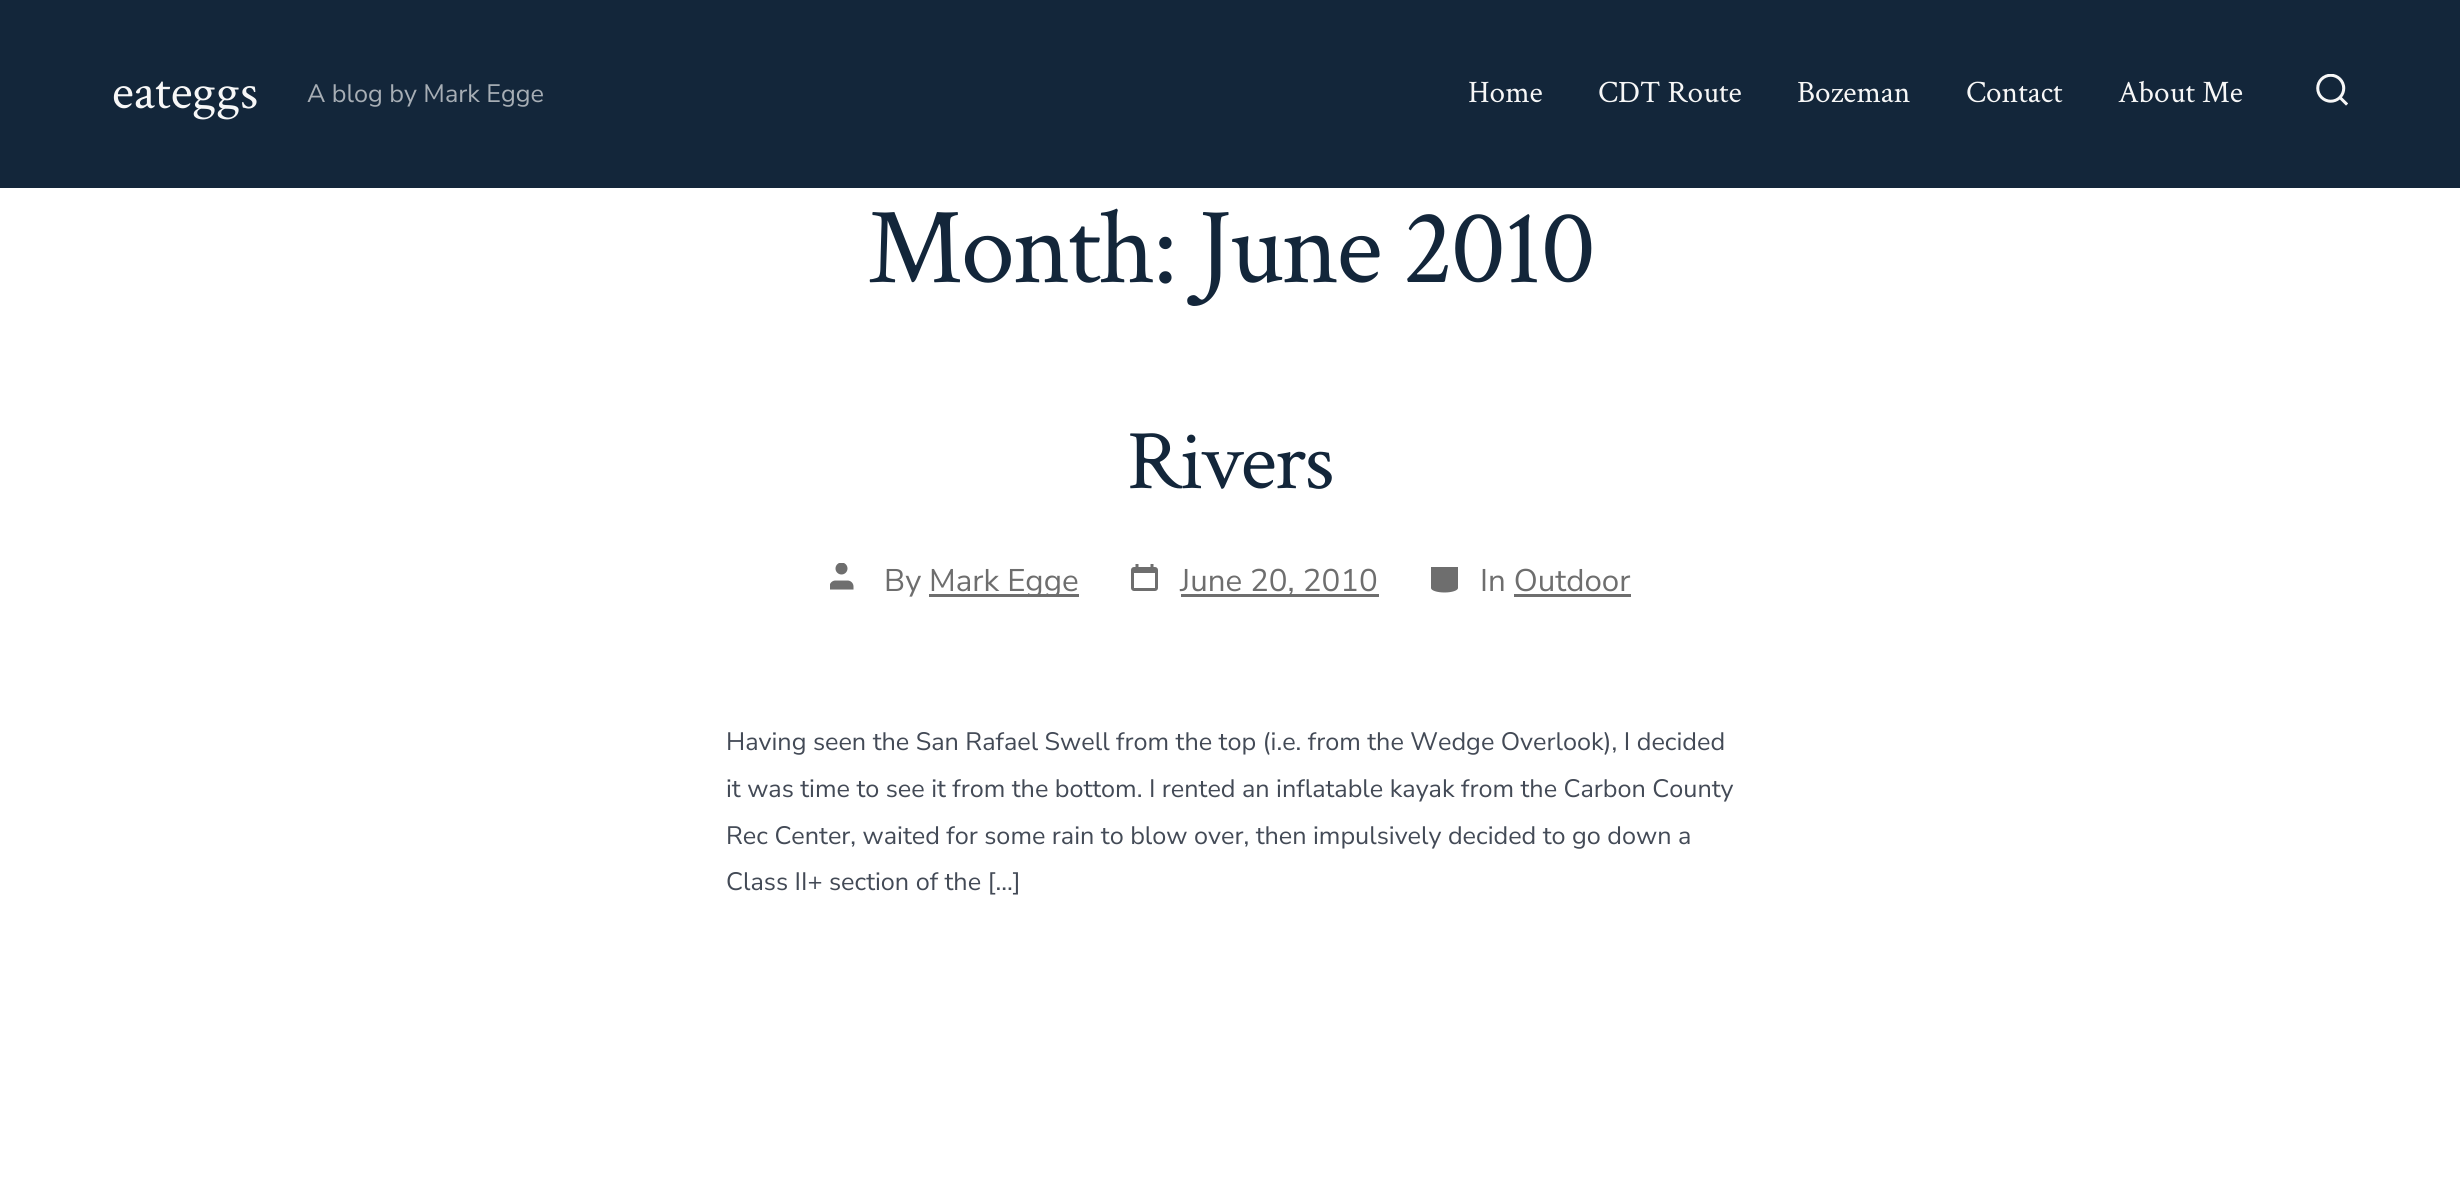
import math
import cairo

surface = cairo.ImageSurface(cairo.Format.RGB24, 2460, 1198)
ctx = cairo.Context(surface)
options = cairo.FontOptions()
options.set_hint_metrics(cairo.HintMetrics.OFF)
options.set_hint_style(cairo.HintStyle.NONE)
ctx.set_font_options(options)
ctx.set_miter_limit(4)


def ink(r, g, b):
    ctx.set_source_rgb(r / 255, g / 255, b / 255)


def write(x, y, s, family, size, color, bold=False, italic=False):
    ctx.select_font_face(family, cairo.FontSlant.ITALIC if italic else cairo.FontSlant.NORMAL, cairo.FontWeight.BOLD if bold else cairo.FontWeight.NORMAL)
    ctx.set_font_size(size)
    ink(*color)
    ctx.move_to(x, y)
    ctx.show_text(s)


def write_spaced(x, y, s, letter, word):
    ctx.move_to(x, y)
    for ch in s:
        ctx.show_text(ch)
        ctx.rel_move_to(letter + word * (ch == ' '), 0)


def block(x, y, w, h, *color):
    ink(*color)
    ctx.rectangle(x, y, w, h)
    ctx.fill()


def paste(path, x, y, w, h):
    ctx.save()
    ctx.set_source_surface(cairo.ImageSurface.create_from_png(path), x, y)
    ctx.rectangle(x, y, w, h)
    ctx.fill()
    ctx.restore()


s1 = dict(family="Crimson Text", size=51.5, color=(247, 247, 247))
s2 = dict(family="Nunito Sans", size=25.2, color=(167, 174, 181))
s3 = dict(family="Crimson Text", size=31.25, color=(247, 247, 247))
s4 = dict(family="Nunito Sans", size=31.25, color=(110, 110, 110))
s5 = dict(family="Nunito Sans", size=25.2, color=(67, 74, 86))

ink(255, 255, 255)
ctx.paint()
block(0, 0, 2460, 188, 19, 38, 58)
write(112, 108, "eateggs", **s1)
write(307, 102, "A blog by Mark Egge", **s2)
write(1468, 102, "Home", **s3)
write(1598, 102, "CDT Route", **s3)
write(1797, 102, "Bozeman", **s3)
write(1966, 102, "Contact", **s3)
write(2118, 102, "About Me", **s3)
paste("pic1.png", 2316, 74, 32, 32)
ctx.set_font_size(108.25)
ink(19, 38, 58)
write_spaced(867, 282, "Month: June 2010", -2.2, 0)
ctx.set_font_size(85)
write_spaced(1127, 488, "Rivers", -1.75, 0)
paste("pic2.png", 830, 563, 24, 27)
write(884, 591, "By", **s4)
block(929, 594, 150, 3, 110, 110, 110)
write(929, 591, "Mark Egge", **s4)
paste("pic3.png", 1131, 564, 27, 27)
block(1181, 594, 198, 3, 110, 110, 110)
write(1180, 591, "June 20, 2010", **s4)
paste("pic4.png", 1431, 567, 27, 26)
write(1480, 591, "In Outdoor", **s4)
block(1514, 594, 117, 3, 110, 110, 110)
write(726, 750, "Having seen the San Rafael Swell from the top (i.e. from the Wedge Overlook), I decided", **s5)
write(726, 797, "it was time to see it from the bottom. I rented an inflatable kayak from the Carbon County", **s5)
write(726, 844, "Rec Center, waited for some rain to blow over, then impulsively decided to go down a", **s5)
write(726, 890, "Class II+ section of the […]", **s5)
surface.write_to_png("screenshot.png")
